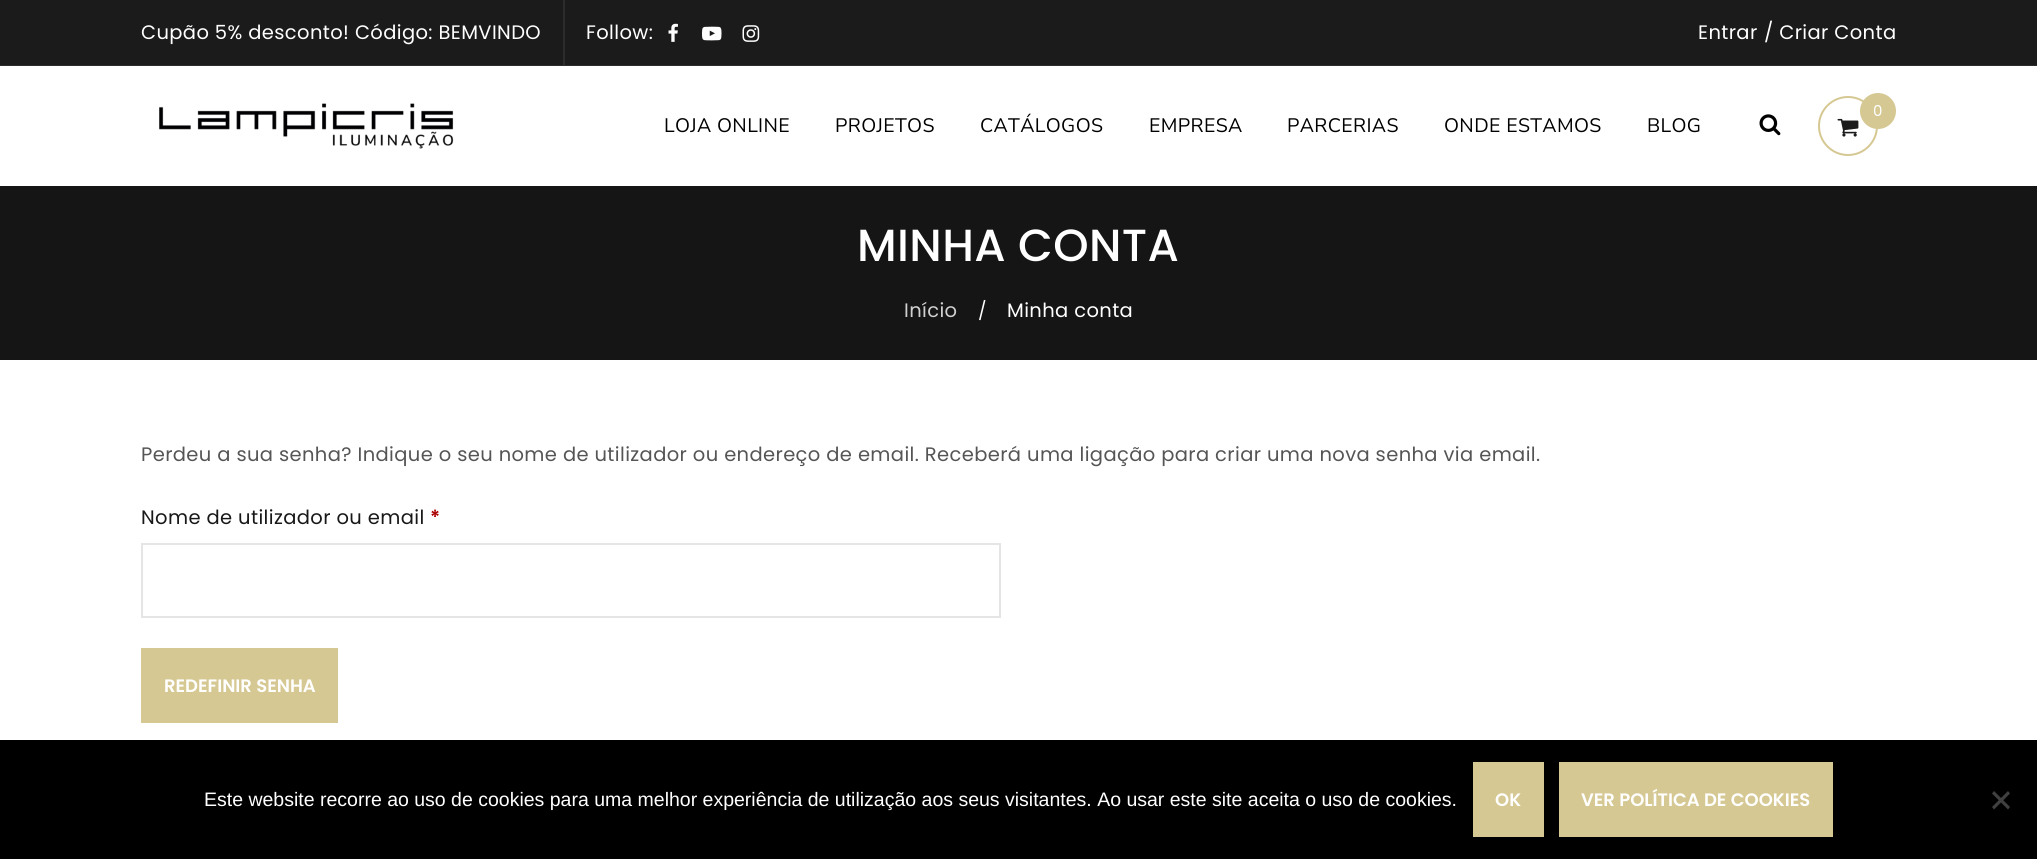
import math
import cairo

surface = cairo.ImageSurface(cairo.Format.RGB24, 2037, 859)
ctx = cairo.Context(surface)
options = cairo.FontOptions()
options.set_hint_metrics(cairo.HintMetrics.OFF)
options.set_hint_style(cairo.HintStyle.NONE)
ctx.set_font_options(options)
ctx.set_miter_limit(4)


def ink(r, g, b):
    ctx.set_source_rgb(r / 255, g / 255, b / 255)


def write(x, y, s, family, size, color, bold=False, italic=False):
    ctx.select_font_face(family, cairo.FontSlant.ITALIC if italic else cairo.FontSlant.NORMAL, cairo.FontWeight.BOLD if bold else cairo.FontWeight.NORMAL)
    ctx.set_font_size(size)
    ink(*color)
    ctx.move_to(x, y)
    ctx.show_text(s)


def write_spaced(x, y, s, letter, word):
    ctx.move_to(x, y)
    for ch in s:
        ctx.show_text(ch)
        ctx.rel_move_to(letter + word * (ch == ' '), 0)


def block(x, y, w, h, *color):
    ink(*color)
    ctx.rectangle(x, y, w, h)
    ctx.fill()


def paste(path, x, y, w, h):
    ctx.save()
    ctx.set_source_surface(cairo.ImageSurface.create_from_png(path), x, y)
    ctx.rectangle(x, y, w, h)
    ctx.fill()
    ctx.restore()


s1 = dict(family="Poppins SemiBold", size=18, color=(255, 255, 255))
s2 = dict(family="Liberation Sans", size=19.5, color=(255, 255, 255))

ink(255, 255, 255)
ctx.paint()
block(0, 0, 2037, 65, 27, 27, 27)
block(0, 65, 2037, 1, 44, 44, 44)
ctx.select_font_face("Poppins")
ctx.set_font_size(19.5)
ink(255, 255, 255)
write_spaced(141, 39, "Cupão 5% desconto! Código: BEMVINDO", 0.38, 0)
block(563, 0, 2, 66, 44, 44, 44)
ink(255, 255, 255)
write_spaced(586, 39, "Follow:", 0.38, 0)
paste("pic1.png", 668, 23, 10, 19)
paste("pic2.png", 702, 26, 20, 15)
paste("pic3.png", 742, 25, 18, 17)
write_spaced(1698, 39, "Entrar", 0.38, 0)
write_spaced(1764, 39, "/ Criar Conta", 0.38, 0)
paste("pic4.png", 159, 103, 295, 46)
ctx.arc(1848, 126, 29, 0, 2 * math.pi)
ink(214, 200, 147)
ctx.stroke()
paste("pic5.png", 1837, 118, 22, 19)
ctx.arc(1878, 111, 18, 0, 2 * math.pi)
ctx.fill()
ctx.set_font_size(15)
ink(255, 255, 255)
write_spaced(1873, 116, "0", 0.38, 0)
paste("pic6.png", 1759, 114, 22, 22)
ctx.select_font_face("Nunito Sans ExtraLight")
ctx.set_font_size(19.5)
ink(0, 0, 0)
write_spaced(664, 132, "LOJA ONLINE", 0.38, 0)
write_spaced(835, 132, "PROJETOS", 0.38, 0)
write_spaced(980, 132, "CATÁLOGOS", 0.38, 0)
write_spaced(1149, 132, "EMPRESA", 0.38, 0)
write_spaced(1287, 132, "PARCERIAS", 0.38, 0)
write_spaced(1444, 132, "ONDE ESTAMOS", 0.38, 0)
write_spaced(1647, 132, "BLOG", 0.38, 0)
block(0, 186, 2037, 174, 21, 21, 21)
ctx.select_font_face("Poppins Medium")
ctx.set_font_size(45)
ink(255, 255, 255)
write_spaced(857, 261, "MINHA CONTA", 0.38, 0)
ctx.select_font_face("Poppins")
ctx.set_font_size(19.5)
ink(208, 208, 208)
write_spaced(904, 317, "Início", 0.38, 0)
ctx.set_font_size(18)
ink(255, 255, 255)
write_spaced(978, 317, "/", 0.38, 0)
ctx.set_font_size(19.5)
write_spaced(1007, 317, "Minha conta", 0.38, 0)
ink(85, 85, 85)
write_spaced(141, 461, "Perdeu a sua senha? Indique o seu nome de utilizador ou endereço de email. Receberá uma ligação para criar uma nova senha via email.", 0.38, 0)
ink(24, 24, 24)
write_spaced(141, 524, "Nome de utilizador ou email", 0.38, 0)
ctx.select_font_face("Poppins SemiBold")
ink(170, 0, 0)
write_spaced(430, 524, "*", 0.38, 0)
ctx.rectangle(142, 544, 858, 73)
ink(229, 229, 229)
ctx.stroke()
block(141, 648, 197, 75, 214, 200, 147)
write(164, 692, "REDEFINIR SENHA", **s1)
block(0, 740, 2037, 119, 0, 0, 0)
write(204, 806, "Este website recorre ao uso de cookies para uma melhor experiência de utilização aos seus visitantes. Ao usar este site aceita o uso de cookies.", **s2)
block(1473, 762, 71, 75, 214, 200, 147)
write(1495, 806, "OK", **s1)
block(1559, 762, 274, 75, 214, 200, 147)
write(1581, 806, "VER POLÍTICA DE COOKIES", **s1)
ink(64, 64, 64)
ctx.new_path()
ctx.move_to(2008, 791)
ctx.line_to(2010, 793.5)
ctx.line_to(1994, 809.5)
ctx.line_to(1992, 807)
ctx.close_path()
ctx.fill()
ctx.new_path()
ctx.move_to(1992, 793.5)
ctx.line_to(1994, 791)
ctx.line_to(2010, 807)
ctx.line_to(2008, 809.5)
ctx.close_path()
ctx.fill()
surface.write_to_png("screenshot.png")
